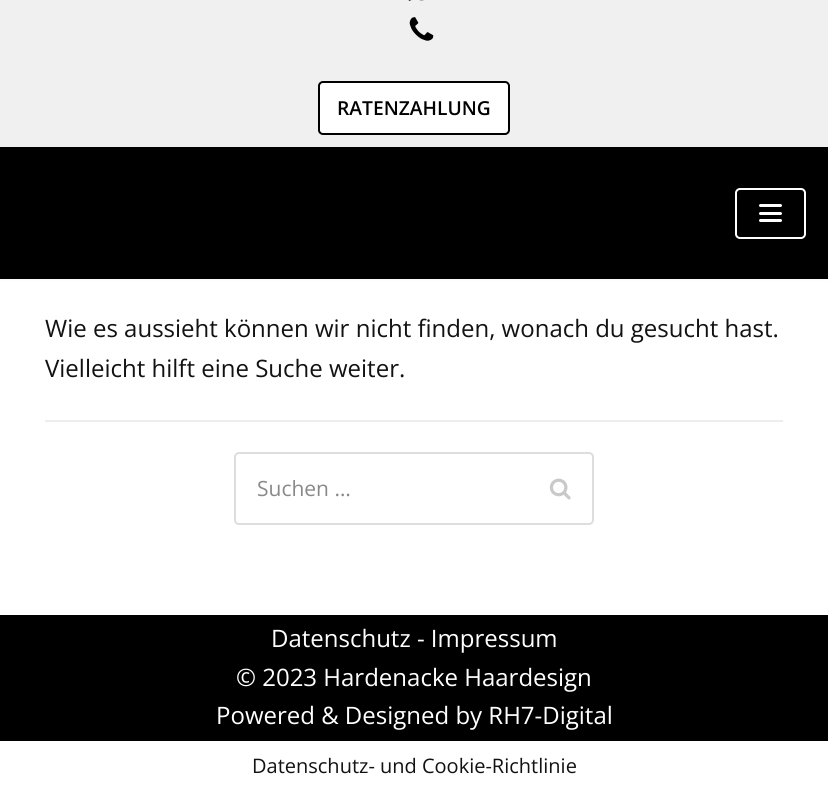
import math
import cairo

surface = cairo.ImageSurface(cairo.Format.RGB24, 828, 790)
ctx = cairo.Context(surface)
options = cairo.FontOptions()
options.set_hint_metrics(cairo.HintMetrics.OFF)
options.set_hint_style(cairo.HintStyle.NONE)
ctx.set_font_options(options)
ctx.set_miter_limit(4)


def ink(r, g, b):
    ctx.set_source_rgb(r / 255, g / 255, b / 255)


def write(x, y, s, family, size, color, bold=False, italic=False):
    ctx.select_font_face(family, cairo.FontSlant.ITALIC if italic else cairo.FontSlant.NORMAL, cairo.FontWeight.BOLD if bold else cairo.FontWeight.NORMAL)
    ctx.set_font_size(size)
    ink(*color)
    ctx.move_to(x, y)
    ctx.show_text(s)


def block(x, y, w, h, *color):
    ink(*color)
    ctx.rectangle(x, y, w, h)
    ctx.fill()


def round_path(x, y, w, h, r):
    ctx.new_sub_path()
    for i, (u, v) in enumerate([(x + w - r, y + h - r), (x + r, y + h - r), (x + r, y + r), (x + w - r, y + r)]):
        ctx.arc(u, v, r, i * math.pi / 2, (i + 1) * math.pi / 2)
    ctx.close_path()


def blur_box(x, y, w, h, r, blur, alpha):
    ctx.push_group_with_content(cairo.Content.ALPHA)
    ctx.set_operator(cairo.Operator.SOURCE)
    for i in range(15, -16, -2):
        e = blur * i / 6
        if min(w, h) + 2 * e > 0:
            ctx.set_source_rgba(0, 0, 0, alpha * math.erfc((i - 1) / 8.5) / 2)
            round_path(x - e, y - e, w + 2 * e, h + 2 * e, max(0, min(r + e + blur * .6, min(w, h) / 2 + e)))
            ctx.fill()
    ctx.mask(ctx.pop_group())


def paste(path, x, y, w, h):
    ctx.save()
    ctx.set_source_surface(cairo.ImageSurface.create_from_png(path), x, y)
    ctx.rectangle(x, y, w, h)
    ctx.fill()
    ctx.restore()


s1 = dict(family="Open Sans SemiBold", size=19.25, color=(0, 0, 0))
s2 = dict(family="Open Sans", size=24, color=(18, 18, 18))
s3 = dict(family="Open Sans", size=21, color=(137, 137, 137))
s4 = dict(family="Open Sans", size=24, color=(255, 255, 255))
s5 = dict(family="Open Sans", size=20, color=(18, 18, 18))

ink(255, 255, 255)
ctx.paint()
ink(0, 0, 0)
blur_box(0, -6, 828, 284, 0, 2, 0.1)
block(1, 0, 826, 147, 240, 240, 240)
paste("pic1.png", 408, 0, 16, 1)
paste("pic2.png", 409, 17, 25, 24)
ink(255, 255, 255)
round_path(319, 82, 190, 52, 4)
ctx.fill_preserve()
ink(0, 0, 0)
ctx.stroke()
write(337, 115, "RATENZAHLUNG", **s1)
block(0, 147, 828, 132, 0, 0, 0)
round_path(736, 189, 69, 49, 4)
ink(255, 255, 255)
ctx.stroke()
round_path(759, 204, 23, 3, 1.5)
ctx.fill()
round_path(759, 212, 23, 3, 1.5)
ctx.fill()
round_path(759, 219, 23, 3, 1.5)
ctx.fill()
write(45, 337, "Wie es aussieht können wir nicht finden, wonach du gesucht hast.", **s2)
write(45, 377, "Vielleicht hilft eine Suche weiter.", **s2)
block(45, 420, 738, 2, 237, 237, 237)
round_path(235, 453, 358, 71, 4)
ink(221, 221, 221)
ctx.stroke()
write(257, 496, "Suchen …", **s3)
paste("pic3.png", 549, 478, 22, 22)
block(0, 615, 828, 126, 0, 0, 0)
write(271, 647, "Datenschutz - Impressum", **s4)
write(236, 686, "© 2023 Hardenacke Haardesign", **s4)
write(216, 724, "Powered & Designed by RH7-Digital", **s4)
write(252, 773, "Datenschutz- und Cookie-Richtlinie", **s5)
surface.write_to_png("screenshot.png")
